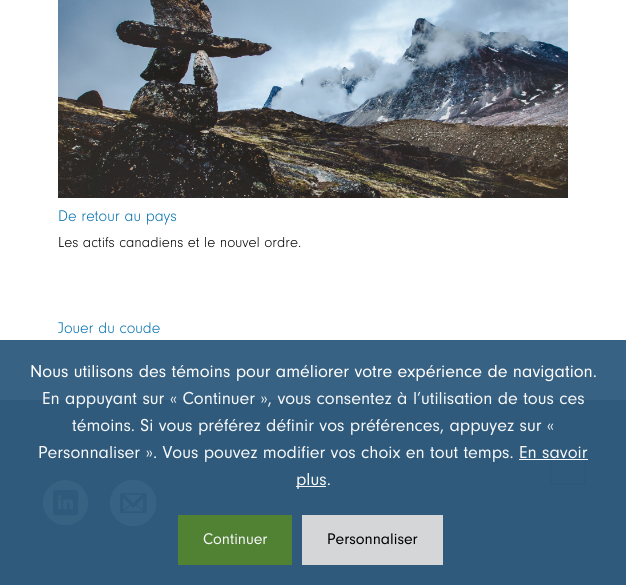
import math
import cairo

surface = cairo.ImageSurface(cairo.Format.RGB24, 626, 585)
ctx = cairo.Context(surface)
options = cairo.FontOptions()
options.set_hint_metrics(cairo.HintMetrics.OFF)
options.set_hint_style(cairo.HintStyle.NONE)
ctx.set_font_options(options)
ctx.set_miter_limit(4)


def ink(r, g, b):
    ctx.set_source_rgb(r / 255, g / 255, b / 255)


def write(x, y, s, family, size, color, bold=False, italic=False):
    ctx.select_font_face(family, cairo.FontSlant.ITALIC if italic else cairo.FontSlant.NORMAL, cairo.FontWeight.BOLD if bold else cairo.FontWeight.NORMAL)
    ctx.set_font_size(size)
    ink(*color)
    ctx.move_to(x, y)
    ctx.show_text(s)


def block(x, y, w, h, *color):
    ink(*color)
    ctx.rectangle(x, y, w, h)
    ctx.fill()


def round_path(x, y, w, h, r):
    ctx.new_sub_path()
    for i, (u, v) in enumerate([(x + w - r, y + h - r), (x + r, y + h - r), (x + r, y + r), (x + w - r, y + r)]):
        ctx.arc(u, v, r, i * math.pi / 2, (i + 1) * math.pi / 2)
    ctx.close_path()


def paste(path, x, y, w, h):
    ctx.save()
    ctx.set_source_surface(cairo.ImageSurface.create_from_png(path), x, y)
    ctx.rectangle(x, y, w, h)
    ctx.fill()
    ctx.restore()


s1 = dict(family="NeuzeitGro", size=16, color=(1, 111, 173))
s2 = dict(family="NeuzeitGro", size=15, color=(0, 0, 0))
s3 = dict(family="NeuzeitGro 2", size=18, color=(255, 255, 255))
s4 = dict(family="NeuzeitGro 2", size=18, color=(245, 247, 249))
s5 = dict(family="NeuzeitGro 2", size=16, color=(245, 247, 249))
s6 = dict(family="NeuzeitGro 2", size=16, color=(0, 0, 0))

ink(255, 255, 255)
ctx.paint()
block(0, 340, 626, 60, 56, 98, 131)
paste("pic1.png", 58, 0, 510, 198)
write(58, 221, "De retour au pays", **s1)
write(58, 247, "Les actifs canadiens et le nouvel ordre.", **s2)
write(58, 333, "Jouer du coude", **s1)
write(30, 377, "Nous utilisons des témoins pour améliorer votre expérience de navigation.", **s3)
block(0, 400, 626, 185, 47, 90, 123)
write(42, 404, "En appuyant sur « Continuer », vous consentez à l’utilisation de tous ces", **s4)
write(72, 431, "témoins. Si vous préférez définir vos préférences, appuyez sur «", **s4)
write(38, 458, "Personnaliser ». Vous pouvez modifier vos choix en tout temps.", **s4)
round_path(551, 450, 34, 34, 1)
ink(45, 88, 120)
ctx.stroke()
write(519, 458, "En savoir", **s4)
ctx.set_source_rgba(1, 1, 1, 0.95)
ctx.rectangle(519, 459, 69, 1)
ctx.fill()
block(296, 486, 30, 1, 246, 246, 247)
write(296, 485, "plus.", **s4)
ctx.set_source_rgba(0.325, 0.514, 0.188, 0.95)
ctx.rectangle(178, 515, 114, 50)
ctx.fill()
write(203, 544, "Continuer", **s5)
ctx.set_source_rgba(0.867, 0.867, 0.867, 0.95)
ctx.rectangle(302, 515, 141, 50)
ctx.fill()
write(327, 544, "Personnaliser", **s6)
paste("pic2.png", 43, 480, 45, 46)
paste("pic3.png", 110, 480, 46, 46)
surface.write_to_png("screenshot.png")
